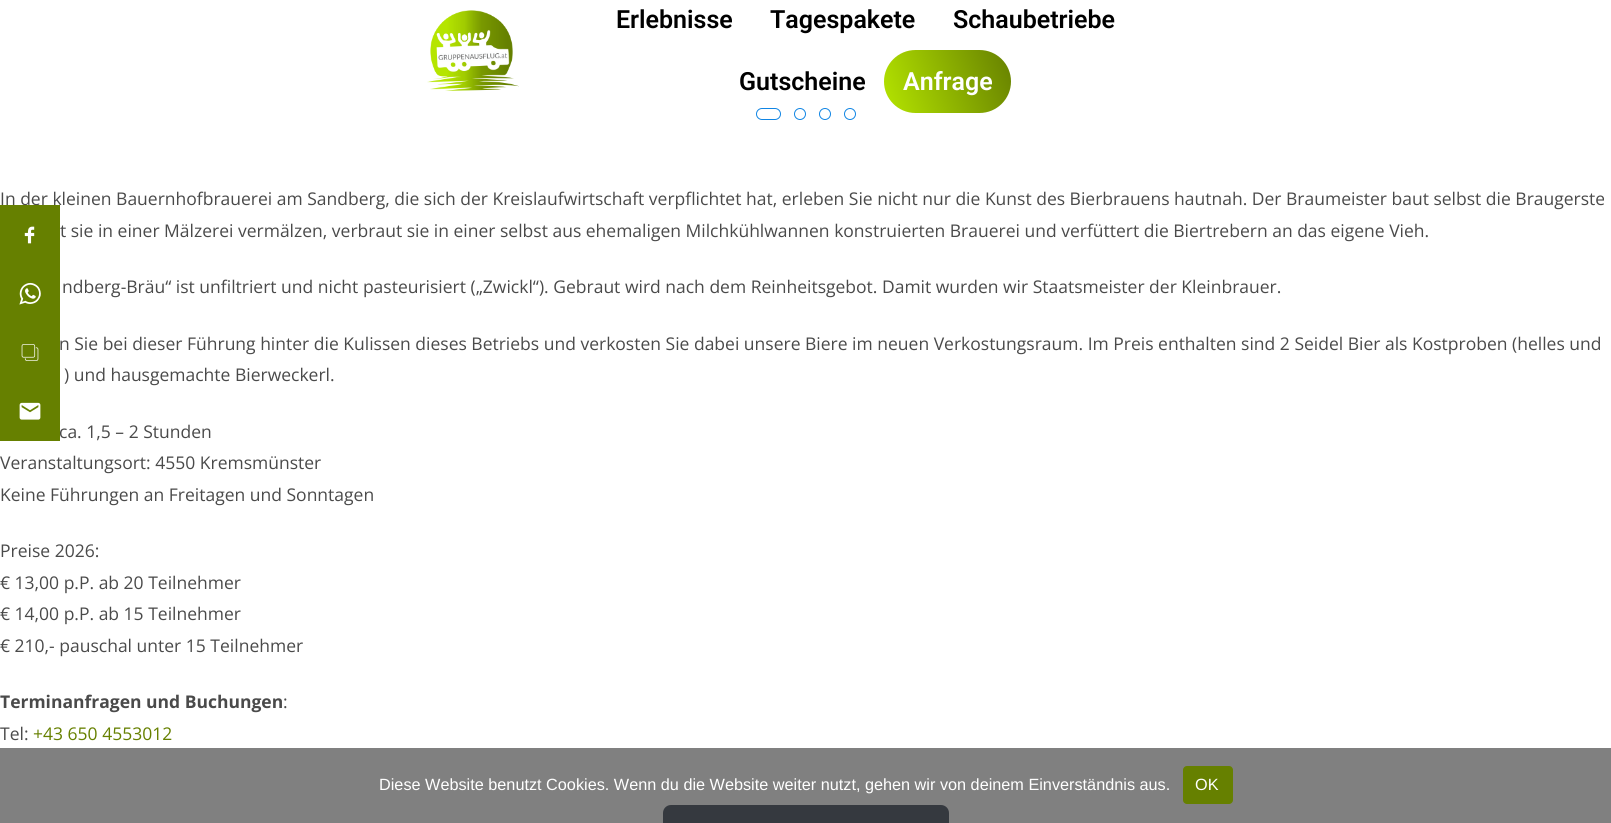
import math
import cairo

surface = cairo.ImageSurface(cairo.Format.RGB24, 1611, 823)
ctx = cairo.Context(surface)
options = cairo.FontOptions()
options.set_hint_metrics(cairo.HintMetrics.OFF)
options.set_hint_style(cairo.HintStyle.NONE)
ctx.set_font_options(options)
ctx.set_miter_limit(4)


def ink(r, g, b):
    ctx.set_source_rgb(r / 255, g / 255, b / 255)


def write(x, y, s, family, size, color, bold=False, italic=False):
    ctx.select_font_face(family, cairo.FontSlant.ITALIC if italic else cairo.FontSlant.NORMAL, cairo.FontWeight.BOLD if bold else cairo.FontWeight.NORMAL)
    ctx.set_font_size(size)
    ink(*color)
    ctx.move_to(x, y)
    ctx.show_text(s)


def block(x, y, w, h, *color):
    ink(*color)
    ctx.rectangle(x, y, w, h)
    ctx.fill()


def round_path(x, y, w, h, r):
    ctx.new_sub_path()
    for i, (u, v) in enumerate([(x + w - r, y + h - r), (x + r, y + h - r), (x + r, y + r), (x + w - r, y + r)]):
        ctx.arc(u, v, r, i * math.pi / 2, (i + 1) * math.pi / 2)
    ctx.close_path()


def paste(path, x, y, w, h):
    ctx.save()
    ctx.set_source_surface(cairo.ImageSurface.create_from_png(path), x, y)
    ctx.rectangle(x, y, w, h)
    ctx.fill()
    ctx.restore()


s1 = dict(family="Roboto SemiBold", size=25, color=(0, 0, 0))
s2 = dict(family="Roboto SemiBold", size=25, color=(255, 255, 255))
s3 = dict(family="Open Sans", size=17.5, color=(74, 74, 74))
s4 = dict(family="Open Sans", size=17.5, color=(74, 74, 74), bold=True)
s5 = dict(family="Open Sans", size=17.5, color=(102, 128, 0))
s6 = dict(family="Liberation Sans", size=16.25, color=(255, 255, 255))

ink(255, 255, 255)
ctx.paint()
block(0, 748, 1611, 75, 128, 128, 128)
paste("pic1.png", 427, 10, 92, 81)
write(616, 28, "Erlebnisse", **s1)
write(770, 28, "Tagespakete", **s1)
write(953, 28, "Schaubetriebe", **s1)
write(739, 90, "Gutscheine", **s1)
gradient = cairo.LinearGradient(881, 105, 1014, 57)
gradient.add_color_stop_rgba(0, 0.71, 0.898, 0, 1)
gradient.add_color_stop_rgba(1, 0.4, 0.502, 0, 1)
ctx.set_source(gradient)
round_path(884, 50, 127, 63, 31.5)
ctx.fill()
write(903, 90, "Anfrage", **s2)
round_path(756.5, 108.5, 24, 11, 5.5)
ink(16, 133, 228)
ctx.set_line_width(1)
ctx.stroke()
ctx.arc(800, 114, 5.5, 0, 2 * math.pi)
ctx.stroke()
ctx.arc(825, 114, 5.5, 0, 2 * math.pi)
ctx.stroke()
ctx.arc(850, 114, 5.5, 0, 2 * math.pi)
ctx.stroke()
write(0, 205, "In der kleinen Bauernhofbrauerei am Sandberg, die sich der Kreislaufwirtschaft verpflichtet hat, erleben Sie nicht nur die Kunst des Bierbrauens hautnah. Der Braumeister baut selbst die Braugerste", **s3)
write(60, 237, "t sie in einer Mälzerei vermälzen, verbraut sie in einer selbst aus ehemaligen Milchkühlwannen konstruierten Brauerei und verfüttert die Biertrebern an das eigene Vieh.", **s3)
write(62, 293, "ndberg-Bräu“ ist unfiltriert und nicht pasteurisiert („Zwickl“). Gebraut wird nach dem Reinheitsgebot. Damit wurden wir Staatsmeister der Kleinbrauer.", **s3)
write(59, 350, "n Sie bei dieser Führung hinter die Kulissen dieses Betriebs und verkosten Sie dabei unsere Biere im neuen Verkostungsraum. Im Preis enthalten sind 2 Seidel Bier als Kostproben (helles und", **s3)
write(64, 381, ") und hausgemachte Bierweckerl.", **s3)
write(59, 438, "ca. 1,5 – 2 Stunden", **s3)
write(0, 469, "Veranstaltungsort: 4550 Kremsmünster", **s3)
write(0, 501, "Keine Führungen an Freitagen und Sonntagen", **s3)
write(0, 557, "Preise 2026:", **s3)
write(0, 589, "€ 13,00 p.P. ab 20 Teilnehmer", **s3)
write(0, 620, "€ 14,00 p.P. ab 15 Teilnehmer", **s3)
write(0, 652, "€ 210,- pauschal unter 15 Teilnehmer", **s3)
write(0, 708, "Terminanfragen und Buchungen", **s4)
write(283, 708, ":", **s3)
write(0, 740, "Tel:", **s3)
write(33, 740, "+43 650 4553012", **s5)
ink(53, 57, 63)
round_path(663, 805, 286, 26, 8)
ctx.fill()
block(0, 205, 60, 236, 102, 128, 0)
paste("pic2.png", 24, 226, 11, 18)
paste("pic3.png", 19, 282, 22, 23)
paste("pic4.png", 21, 344, 18, 17)
paste("pic5.png", 19, 402, 22, 18)
write(379, 790, "Diese Website benutzt Cookies. Wenn du die Website weiter nutzt, gehen wir von deinem Einverständnis aus.", **s6)
ink(102, 128, 0)
round_path(1183, 766, 50, 38, 4)
ctx.fill()
write(1195, 790, "OK", **s6)
surface.write_to_png("screenshot.png")
